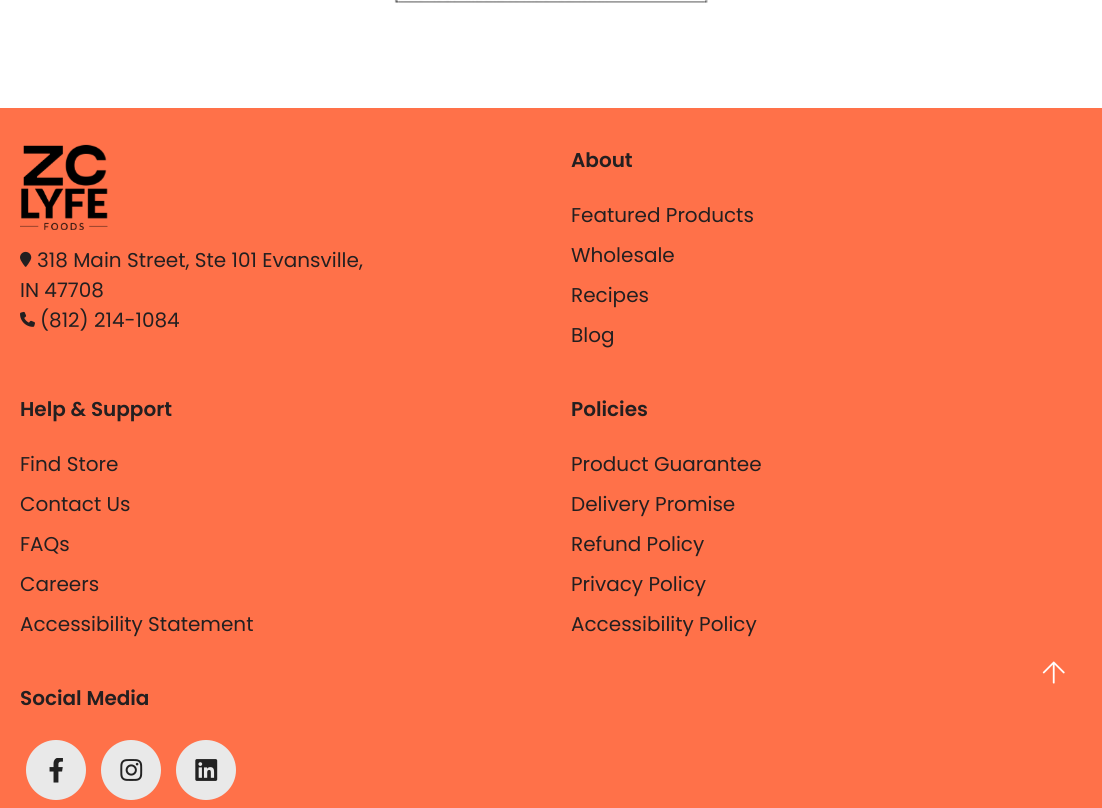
import math
import cairo

surface = cairo.ImageSurface(cairo.Format.RGB24, 1102, 808)
ctx = cairo.Context(surface)
options = cairo.FontOptions()
options.set_hint_metrics(cairo.HintMetrics.OFF)
options.set_hint_style(cairo.HintStyle.NONE)
ctx.set_font_options(options)
ctx.set_miter_limit(4)


def ink(r, g, b):
    ctx.set_source_rgb(r / 255, g / 255, b / 255)


def write(x, y, s, family, size, color, bold=False, italic=False):
    ctx.select_font_face(family, cairo.FontSlant.ITALIC if italic else cairo.FontSlant.NORMAL, cairo.FontWeight.BOLD if bold else cairo.FontWeight.NORMAL)
    ctx.set_font_size(size)
    ink(*color)
    ctx.move_to(x, y)
    ctx.show_text(s)


def block(x, y, w, h, *color):
    ink(*color)
    ctx.rectangle(x, y, w, h)
    ctx.fill()


def paste(path, x, y, w, h):
    ctx.save()
    ctx.set_source_surface(cairo.ImageSurface.create_from_png(path), x, y)
    ctx.rectangle(x, y, w, h)
    ctx.fill()
    ctx.restore()


s1 = dict(family="Poppins", size=20, color=(35, 31, 32))
s2 = dict(family="Poppins SemiBold", size=20, color=(35, 31, 32))

ink(255, 255, 255)
ctx.paint()
paste("pic1.png", 394, 0, 314, 3)
block(0, 108, 1102, 700, 255, 113, 73)
paste("pic2.png", 20, 144, 88, 86)
paste("pic3.png", 20, 251, 12, 16)
write(37, 267, "318 Main Street, Ste 101 Evansville,", **s1)
write(20, 297, "IN 47708", **s1)
paste("pic4.png", 20, 311, 15, 16)
write(40, 327, "(812) 214-1084", **s1)
write(571, 167, "About", **s2)
write(571, 222, "Featured Products", **s1)
write(571, 262, "Wholesale", **s1)
write(571, 302, "Recipes", **s1)
write(571, 342, "Blog", **s1)
write(20, 416, "Help & Support", **s2)
write(20, 471, "Find Store", **s1)
write(20, 511, "Contact Us", **s1)
write(20, 551, "FAQs", **s1)
write(20, 591, "Careers", **s1)
write(20, 631, "Accessibility Statement", **s1)
write(571, 416, "Policies", **s2)
write(571, 471, "Product Guarantee", **s1)
write(571, 511, "Delivery Promise", **s1)
write(571, 551, "Refund Policy", **s1)
write(571, 591, "Privacy Policy", **s1)
write(571, 631, "Accessibility Policy", **s1)
write(20, 705, "Social Media", **s2)
ink(233, 233, 233)
ctx.new_path()
ctx.arc(56, 770, 30, 0, 2 * math.pi)
ctx.fill()
paste("pic5.png", 49, 758, 14, 25)
ctx.arc(131, 770, 30, 0, 2 * math.pi)
ctx.fill()
paste("pic6.png", 120, 759, 23, 22)
ctx.arc(206, 770, 30, 0, 2 * math.pi)
ctx.fill()
paste("pic7.png", 195, 759, 23, 22)
ink(255, 113, 73)
ctx.new_path()
ctx.move_to(512, 399)
ctx.curve_to(505, 436, 549, 461, 577, 436)
ctx.curve_to(585, 430, 589, 421, 591, 411)
ctx.curve_to(589, 420, 584, 429, 577, 435)
ctx.curve_to(549, 458, 507, 435, 512, 399)
ctx.close_path()
ctx.fill()
paste("pic8.png", 1042, 661, 23, 23)
surface.write_to_png("screenshot.png")
